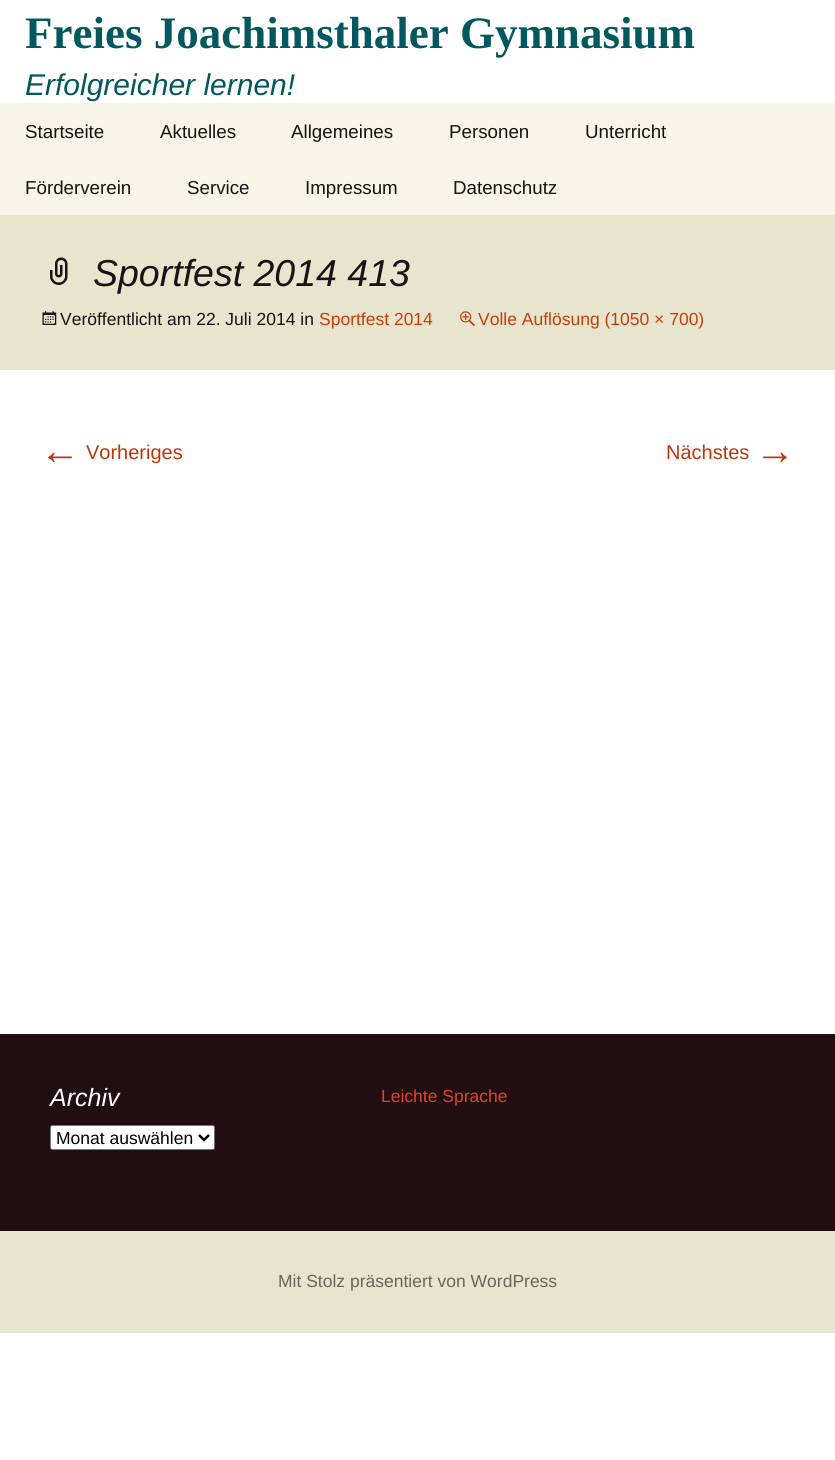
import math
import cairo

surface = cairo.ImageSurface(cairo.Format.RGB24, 835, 1460)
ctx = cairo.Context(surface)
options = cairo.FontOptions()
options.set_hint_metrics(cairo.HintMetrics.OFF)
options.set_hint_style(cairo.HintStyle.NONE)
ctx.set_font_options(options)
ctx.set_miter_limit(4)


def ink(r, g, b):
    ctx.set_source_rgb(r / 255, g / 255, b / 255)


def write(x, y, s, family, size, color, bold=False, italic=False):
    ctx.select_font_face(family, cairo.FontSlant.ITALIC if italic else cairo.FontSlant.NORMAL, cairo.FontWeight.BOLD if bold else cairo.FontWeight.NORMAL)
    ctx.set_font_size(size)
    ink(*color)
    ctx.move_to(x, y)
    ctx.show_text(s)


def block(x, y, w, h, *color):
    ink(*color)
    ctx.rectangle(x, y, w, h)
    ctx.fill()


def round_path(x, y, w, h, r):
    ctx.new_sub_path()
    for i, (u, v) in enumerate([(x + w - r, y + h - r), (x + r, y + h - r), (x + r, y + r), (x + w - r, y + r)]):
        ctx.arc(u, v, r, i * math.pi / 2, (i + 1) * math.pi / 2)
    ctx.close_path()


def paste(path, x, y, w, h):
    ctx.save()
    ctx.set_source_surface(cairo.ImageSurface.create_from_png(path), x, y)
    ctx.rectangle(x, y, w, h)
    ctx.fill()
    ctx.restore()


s1 = dict(family="Liberation Serif", size=45, color=(2, 88, 94), bold=True)
s2 = dict(family="Liberation Sans", size=30, color=(2, 88, 94), italic=True)
s3 = dict(family="Liberation Sans", size=18.75, color=(20, 20, 18))
s4 = dict(family="Liberation Sans", size=37.5, color=(20, 20, 18), italic=True)
s5 = dict(family="Liberation Sans", size=17.5, color=(20, 20, 18))
s6 = dict(family="Liberation Sans", size=17.5, color=(202, 60, 8))
s7 = dict(family="Liberation Sans", size=40, color=(188, 54, 10))
s8 = dict(family="Liberation Sans", size=20, color=(188, 54, 10))
s9 = dict(family="Liberation Sans", size=25, color=(255, 255, 255), italic=True)
s10 = dict(family="Liberation Sans", size=17.5, color=(0, 0, 0))
s11 = dict(family="Liberation Sans", size=17.5, color=(230, 64, 42))
s12 = dict(family="Liberation Sans", size=17.5, color=(104, 103, 88))

ink(255, 255, 255)
ctx.paint()
write(25, 48, "Freies Joachimsthaler Gymnasium", **s1)
write(25, 95, "Erfolgreicher lernen!", **s2)
block(0, 103, 835, 112, 247, 245, 231)
write(25, 138, "Startseite", **s3)
write(160, 138, "Aktuelles", **s3)
write(291, 138, "Allgemeines", **s3)
write(449, 138, "Personen", **s3)
write(585, 138, "Unterricht", **s3)
write(25, 194, "Förderverein", **s3)
write(187, 194, "Service", **s3)
write(305, 194, "Impressum", **s3)
write(453, 194, "Datenschutz", **s3)
block(0, 215, 835, 155, 232, 229, 206)
paste("pic1.png", 50, 257, 18, 28)
write(93, 286, "Sportfest 2014 413", **s4)
paste("pic2.png", 42, 311, 15, 14)
write(60, 325, "Veröffentlicht am 22. Juli 2014 in", **s5)
write(319, 325, "Sportfest 2014", **s6)
paste("pic3.png", 460, 311, 15, 16)
write(478, 325, "Volle Auflösung (1050 × 700)", **s6)
write(40, 464, "←", **s7)
write(86, 459, "Vorheriges", **s8)
write(666, 459, "Nächstes", **s8)
write(755, 464, "→", **s7)
block(0, 1231, 835, 102, 232, 229, 206)
block(0, 1034, 835, 197, 34, 14, 16)
write(50, 1106, "Archiv", **s9)
round_path(50.5, 1125.5, 164, 24, 2)
ctx.fill_preserve()
ink(118, 118, 118)
ctx.set_line_width(1)
ctx.stroke()
ctx.new_path()
ctx.move_to(199, 1135)
ctx.line_to(204, 1140)
ctx.line_to(209, 1135)
ink(0, 0, 0)
ctx.set_line_width(2.5)
ctx.stroke()
write(56, 1144, "Monat auswählen", **s10)
write(381, 1102, "Leichte Sprache", **s11)
write(278, 1287, "Mit Stolz präsentiert von WordPress", **s12)
surface.write_to_png("screenshot.png")
